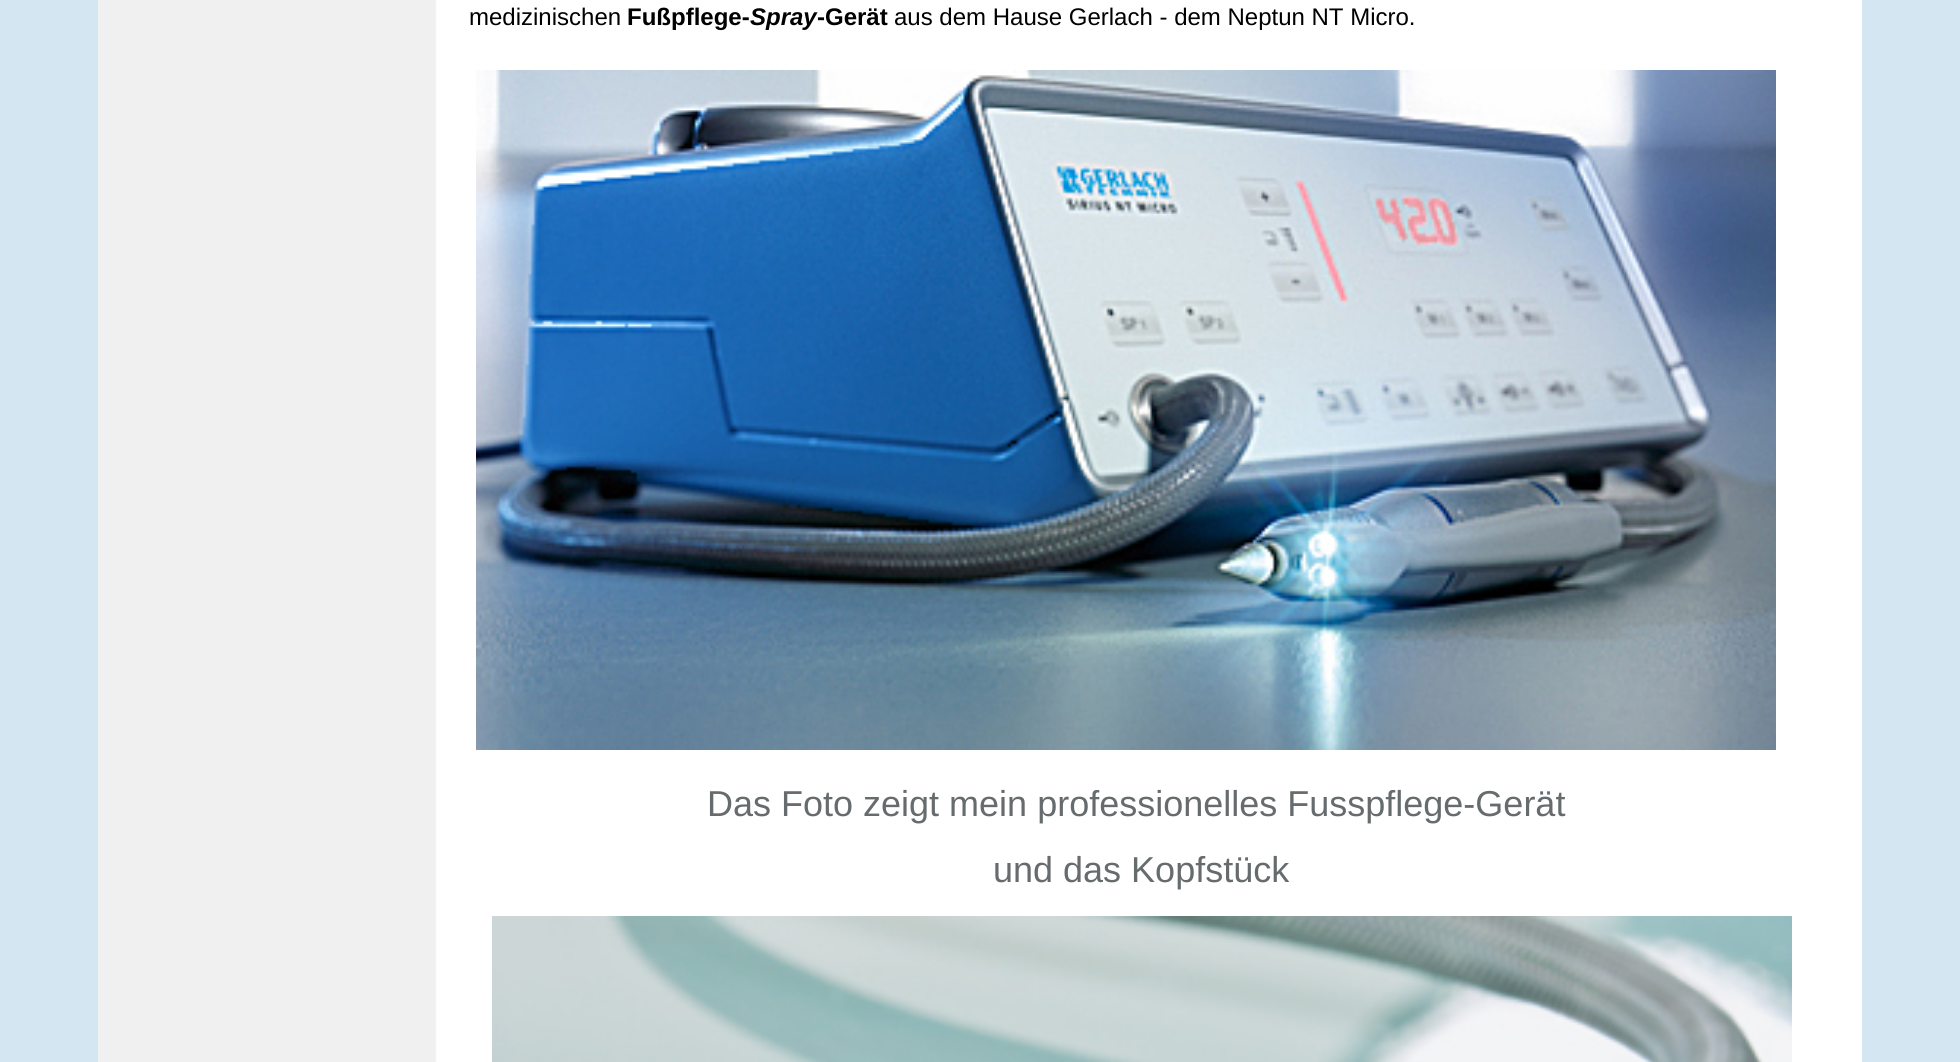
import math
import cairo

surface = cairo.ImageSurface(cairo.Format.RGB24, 1960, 1062)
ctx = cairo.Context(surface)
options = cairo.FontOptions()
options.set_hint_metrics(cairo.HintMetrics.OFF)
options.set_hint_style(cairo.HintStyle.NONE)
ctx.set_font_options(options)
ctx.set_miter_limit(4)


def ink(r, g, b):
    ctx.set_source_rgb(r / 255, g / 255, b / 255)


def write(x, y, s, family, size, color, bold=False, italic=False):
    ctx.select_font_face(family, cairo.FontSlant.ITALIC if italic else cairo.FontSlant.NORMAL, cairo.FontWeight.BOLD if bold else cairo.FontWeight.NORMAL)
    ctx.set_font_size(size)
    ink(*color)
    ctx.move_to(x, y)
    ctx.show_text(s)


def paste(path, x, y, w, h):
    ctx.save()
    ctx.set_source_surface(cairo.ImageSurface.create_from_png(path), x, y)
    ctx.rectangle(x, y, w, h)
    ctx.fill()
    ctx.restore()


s1 = dict(family="Liberation Sans", size=24, color=(0, 0, 0))
s2 = dict(family="Liberation Sans", size=24, color=(0, 0, 0), bold=True)
s3 = dict(family="Liberation Sans", size=24, color=(0, 0, 0), bold=True, italic=True)
s4 = dict(family="Liberation Sans", size=36, color=(102, 107, 110))

ink(211, 230, 242)
ctx.paint()
paste("pic1.png", 98, 0, 1764, 1062)
write(469, 25, "medizinischen", **s1)
write(627, 25, "Fußpflege-", **s2)
write(750, 25, "Spray", **s3)
write(817, 25, "-Gerät", **s2)
write(894, 25, "aus dem Hause Gerlach - dem Neptun NT Micro.", **s1)
paste("pic2.png", 476, 70, 1300, 680)
write(707, 816, "Das Foto zeigt mein professionelles Fusspflege-Gerät", **s4)
write(993, 882, "und das Kopfstück", **s4)
paste("pic3.png", 492, 916, 1300, 146)
surface.write_to_png("screenshot.png")
